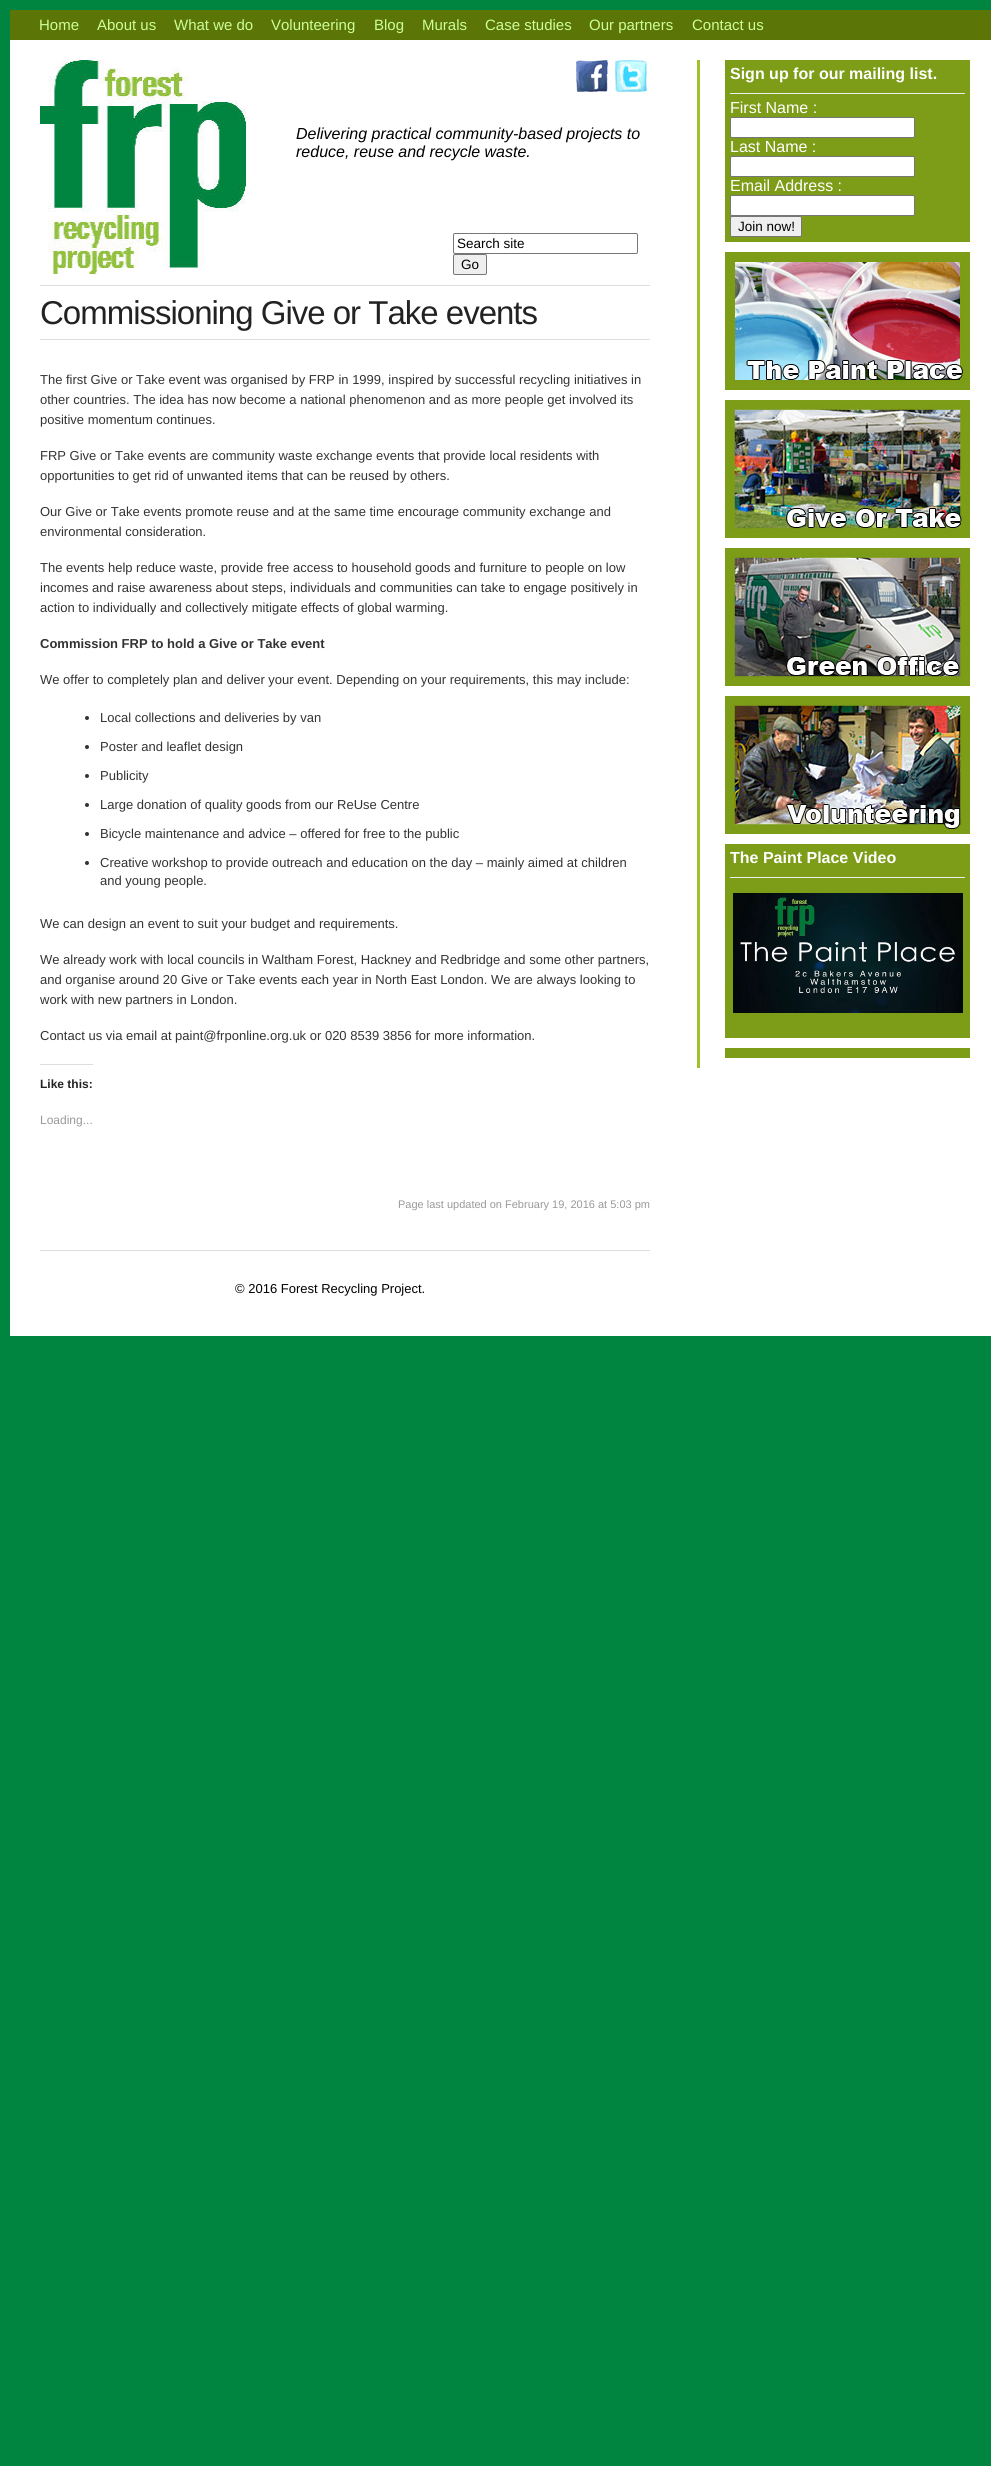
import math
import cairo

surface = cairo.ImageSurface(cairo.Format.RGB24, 991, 2466)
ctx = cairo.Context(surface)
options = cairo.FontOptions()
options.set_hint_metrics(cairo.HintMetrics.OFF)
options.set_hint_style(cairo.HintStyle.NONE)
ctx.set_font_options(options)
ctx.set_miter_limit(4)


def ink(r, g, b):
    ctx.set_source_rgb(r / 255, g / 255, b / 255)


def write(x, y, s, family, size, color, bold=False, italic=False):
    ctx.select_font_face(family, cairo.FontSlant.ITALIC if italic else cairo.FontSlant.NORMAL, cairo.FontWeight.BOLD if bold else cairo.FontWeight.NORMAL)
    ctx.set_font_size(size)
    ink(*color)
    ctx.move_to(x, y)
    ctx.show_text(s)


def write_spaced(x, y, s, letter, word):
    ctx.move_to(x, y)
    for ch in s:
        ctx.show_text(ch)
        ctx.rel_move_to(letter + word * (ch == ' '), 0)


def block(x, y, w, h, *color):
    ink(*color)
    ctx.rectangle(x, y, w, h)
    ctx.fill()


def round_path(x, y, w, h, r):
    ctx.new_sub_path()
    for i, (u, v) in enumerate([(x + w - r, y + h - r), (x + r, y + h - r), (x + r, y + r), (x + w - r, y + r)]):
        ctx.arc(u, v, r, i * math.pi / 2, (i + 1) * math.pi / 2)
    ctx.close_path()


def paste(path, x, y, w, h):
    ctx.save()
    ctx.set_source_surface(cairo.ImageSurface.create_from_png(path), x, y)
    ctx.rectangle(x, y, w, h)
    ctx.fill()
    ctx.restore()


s1 = dict(family="Liberation Sans", size=15, color=(204, 255, 153))
s2 = dict(family="Liberation Sans", size=16, color=(255, 255, 255), bold=True)
s3 = dict(family="Liberation Sans", size=16, color=(255, 255, 255))
s4 = dict(family="Liberation Sans", size=13.5, color=(0, 0, 0))
s5 = dict(family="Liberation Sans", size=13, color=(0, 0, 0))
s6 = dict(family="Liberation Sans", size=16, color=(0, 0, 0), italic=True)
s7 = dict(family="Liberation Sans", size=13, color=(51, 51, 51))
s8 = dict(family="Liberation Sans", size=13, color=(51, 51, 51), bold=True)
s9 = dict(family="Liberation Sans", size=12, color=(34, 34, 34), bold=True)
s10 = dict(family="Liberation Sans", size=12, color=(153, 153, 153))
s11 = dict(family="Liberation Sans", size=11, color=(153, 153, 153))

ink(0, 133, 64)
ctx.paint()
block(10, 10, 981, 30, 91, 117, 6)
write(39, 30, "Home", **s1)
write(97, 30, "About us", **s1)
write(174, 30, "What we do", **s1)
write(271, 30, "Volunteering", **s1)
write(374, 30, "Blog", **s1)
write(422, 30, "Murals", **s1)
write(485, 30, "Case studies", **s1)
write(589, 30, "Our partners", **s1)
write(692, 30, "Contact us", **s1)
block(10, 40, 981, 1296, 255, 255, 255)
block(697, 60, 3, 1008, 158, 192, 45)
block(725, 60, 245, 182, 125, 156, 23)
block(730, 93, 235, 1, 238, 238, 238)
write(730, 79, "Sign up for our mailing list.", **s2)
write(730, 113, "First Name :", **s3)
round_path(730.5, 117.5, 184, 20, 1.5)
ctx.fill_preserve()
ink(118, 118, 118)
ctx.set_line_width(1)
ctx.stroke()
write(730, 152, "Last Name :", **s3)
round_path(730.5, 156.5, 184, 20, 1.5)
ctx.fill_preserve()
ink(118, 118, 118)
ctx.stroke()
write(730, 191, "Email Address :", **s3)
round_path(730.5, 195.5, 184, 20, 1.5)
ctx.fill_preserve()
ink(118, 118, 118)
ctx.stroke()
ink(239, 239, 239)
round_path(730.5, 216.5, 71, 20, 1.5)
ctx.fill_preserve()
ink(118, 118, 118)
ctx.stroke()
write(738, 231, "Join now!", **s4)
block(725, 252, 245, 138, 125, 156, 23)
paste("pic1.png", 730, 257, 235, 128)
block(725, 400, 245, 138, 125, 156, 23)
paste("pic2.png", 730, 405, 232, 128)
block(725, 548, 245, 138, 125, 156, 23)
paste("pic3.png", 730, 553, 232, 128)
block(725, 696, 245, 138, 125, 156, 23)
paste("pic4.png", 730, 701, 232, 128)
block(725, 844, 245, 194, 125, 156, 23)
block(730, 877, 235, 1, 238, 238, 238)
write(730, 863, "The Paint Place Video", **s2)
paste("pic5.png", 733, 893, 230, 120)
block(725, 1048, 245, 10, 125, 156, 23)
block(40, 1250, 610, 1, 221, 221, 221)
write(235, 1293, "© 2016 Forest Recycling Project.", **s5)
paste("pic6.png", 40, 60, 206, 214)
paste("pic7.png", 576, 60, 32, 32)
paste("pic8.png", 615, 60, 32, 32)
write(296, 139, "Delivering practical community-based projects to", **s6)
write(296, 157, "reduce, reuse and recycle waste.", **s6)
round_path(453.5, 233.5, 184, 20, 1.5)
ink(118, 118, 118)
ctx.stroke()
write(457, 248, "Search site", **s4)
ink(239, 239, 239)
round_path(453.5, 254.5, 33, 20, 1.5)
ctx.fill_preserve()
ink(118, 118, 118)
ctx.stroke()
write(461, 269, "Go", **s4)
block(40, 285, 610, 1, 221, 221, 221)
block(40, 339, 610, 1, 221, 221, 221)
ctx.set_font_size(33)
ink(34, 34, 34)
write_spaced(40, 324, "Commissioning Give or Take events", -1, 0)
write(40, 384, "The first Give or Take event was organised by FRP in 1999, inspired by successful recycling initiatives in", **s7)
write(40, 404, "other countries. The idea has now become a national phenomenon and as more people get involved its", **s7)
write(40, 424, "positive momentum continues.", **s7)
write(40, 460, "FRP Give or Take events are community waste exchange events that provide local residents with", **s7)
write(40, 480, "opportunities to get rid of unwanted items that can be reused by others.", **s7)
write(40, 516, "Our Give or Take events promote reuse and at the same time encourage community exchange and", **s7)
write(40, 536, "environmental consideration.", **s7)
write(40, 572, "The events help reduce waste, provide free access to household goods and furniture to people on low", **s7)
write(40, 592, "incomes and raise awareness about steps, individuals and communities can take to engage positively in", **s7)
write(40, 612, "action to individually and collectively mitigate effects of global warming.", **s7)
write(40, 648, "Commission FRP to hold a Give or Take event", **s8)
write(40, 684, "We offer to completely plan and deliver your event. Depending on your requirements, this may include:", **s7)
ctx.new_path()
ctx.arc(87, 718, 2, 0, 2 * math.pi)
ctx.fill()
write(100, 722, "Local collections and deliveries by van", **s7)
ctx.new_path()
ctx.arc(87, 747, 2, 0, 2 * math.pi)
ctx.fill()
write(100, 751, "Poster and leaflet design", **s7)
ctx.new_path()
ctx.arc(87, 776, 2, 0, 2 * math.pi)
ctx.fill()
write(100, 780, "Publicity", **s7)
ctx.new_path()
ctx.arc(87, 805, 2, 0, 2 * math.pi)
ctx.fill()
write(100, 809, "Large donation of quality goods from our ReUse Centre", **s7)
ctx.new_path()
ctx.arc(87, 834, 2, 0, 2 * math.pi)
ctx.fill()
write(100, 838, "Bicycle maintenance and advice – offered for free to the public", **s7)
ctx.new_path()
ctx.arc(87, 863, 2, 0, 2 * math.pi)
ctx.fill()
write(100, 867, "Creative workshop to provide outreach and education on the day – mainly aimed at children", **s7)
write(100, 885, "and young people.", **s7)
write(40, 928, "We can design an event to suit your budget and requirements.", **s7)
write(40, 964, "We already work with local councils in Waltham Forest, Hackney and Redbridge and some other partners,", **s7)
write(40, 984, "and organise around 20 Give or Take events each year in North East London. We are always looking to", **s7)
write(40, 1004, "work with new partners in London.", **s7)
write(40, 1040, "Contact us via email at paint@frponline.org.uk or 020 8539 3856 for more information.", **s7)
block(40, 1064, 53, 1, 221, 221, 221)
write(40, 1088, "Like this:", **s9)
write(40, 1124, "Loading...", **s10)
write(398, 1208, "Page last updated on February 19, 2016 at 5:03 pm", **s11)
surface.write_to_png("screenshot.png")
